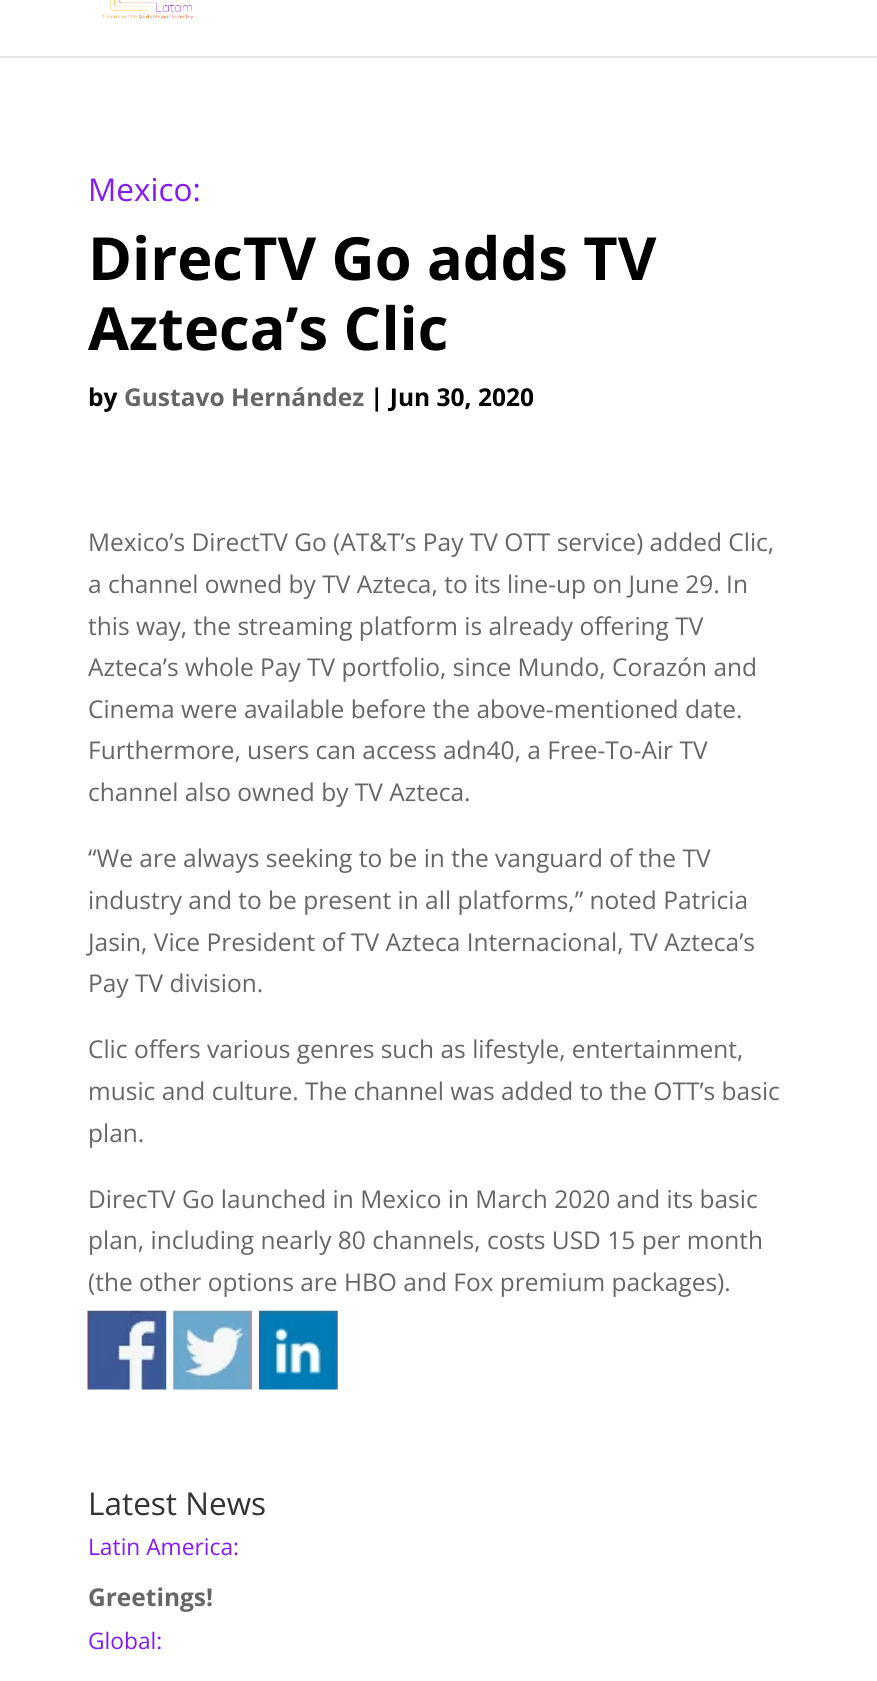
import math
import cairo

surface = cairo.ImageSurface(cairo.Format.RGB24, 877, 1681)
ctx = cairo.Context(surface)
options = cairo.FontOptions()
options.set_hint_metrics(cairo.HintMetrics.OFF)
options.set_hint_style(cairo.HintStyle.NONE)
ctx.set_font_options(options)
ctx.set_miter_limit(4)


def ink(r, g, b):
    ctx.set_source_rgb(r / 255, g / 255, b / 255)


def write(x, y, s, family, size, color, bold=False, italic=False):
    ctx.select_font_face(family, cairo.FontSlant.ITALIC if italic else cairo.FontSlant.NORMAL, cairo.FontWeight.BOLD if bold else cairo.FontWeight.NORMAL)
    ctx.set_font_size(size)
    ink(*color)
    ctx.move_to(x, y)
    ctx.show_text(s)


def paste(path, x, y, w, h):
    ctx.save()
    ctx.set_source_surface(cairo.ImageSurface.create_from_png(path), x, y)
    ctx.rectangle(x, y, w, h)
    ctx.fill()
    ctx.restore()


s1 = dict(family="Open Sans", size=31.5, color=(132, 26, 244))
s2 = dict(family="Open Sans", size=59.5, color=(0, 0, 0), bold=True)
s3 = dict(family="Open Sans", size=24.5, color=(0, 0, 0), bold=True)
s4 = dict(family="Open Sans", size=24.5, color=(102, 102, 102), bold=True)
s5 = dict(family="Open Sans", size=24.5, color=(102, 102, 102))
s6 = dict(family="Open Sans", size=31.5, color=(51, 51, 51))
s7 = dict(family="Open Sans", size=22.75, color=(132, 26, 244))

ink(255, 255, 255)
ctx.paint()
ink(230, 230, 230)
ctx.new_path()
ctx.move_to(0, 56)
ctx.line_to(0, 58)
ctx.line_to(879, 58)
ctx.line_to(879, -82)
ctx.line_to(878, -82)
ctx.line_to(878, 56)
ctx.close_path()
ctx.fill()
paste("pic1.png", 102, 0, 91, 20)
write(88, 201, "Mexico:", **s1)
write(88, 280, "DirecTV Go adds TV", **s2)
write(88, 350, "Azteca’s Clic", **s2)
write(88, 406, "by", **s3)
write(124, 406, "Gustavo Hernández", **s4)
write(370, 406, "| Jun 30, 2020", **s3)
write(88, 551, "Mexico’s DirectTV Go (AT&T’s Pay TV OTT service) added Clic,", **s5)
write(88, 593, "a channel owned by TV Azteca, to its line-up on June 29. In", **s5)
write(88, 635, "this way, the streaming platform is already offering TV", **s5)
write(88, 676, "Azteca’s whole Pay TV portfolio, since Mundo, Corazón and", **s5)
write(88, 718, "Cinema were available before the above-mentioned date.", **s5)
write(88, 759, "Furthermore, users can access adn40, a Free-To-Air TV", **s5)
write(88, 801, "channel also owned by TV Azteca.", **s5)
write(88, 867, "“We are always seeking to be in the vanguard of the TV", **s5)
write(88, 909, "industry and to be present in all platforms,” noted Patricia", **s5)
write(88, 951, "Jasin, Vice President of TV Azteca Internacional, TV Azteca’s", **s5)
write(88, 992, "Pay TV division.", **s5)
write(88, 1058, "Clic offers various genres such as lifestyle, entertainment,", **s5)
write(88, 1100, "music and culture. The channel was added to the OTT’s basic", **s5)
write(88, 1142, "plan.", **s5)
write(88, 1208, "DirecTV Go launched in Mexico in March 2020 and its basic", **s5)
write(88, 1249, "plan, including nearly 80 channels, costs USD 15 per month", **s5)
write(88, 1291, "(the other options are HBO and Fox premium packages).", **s5)
paste("pic2.png", 87, 1310, 80, 80)
paste("pic3.png", 173, 1310, 79, 80)
paste("pic4.png", 259, 1310, 79, 80)
write(88, 1515, "Latest News", **s6)
write(88, 1555, "Latin America:", **s7)
write(88, 1606, "Greetings!", **s4)
write(88, 1649, "Global:", **s7)
surface.write_to_png("screenshot.png")
